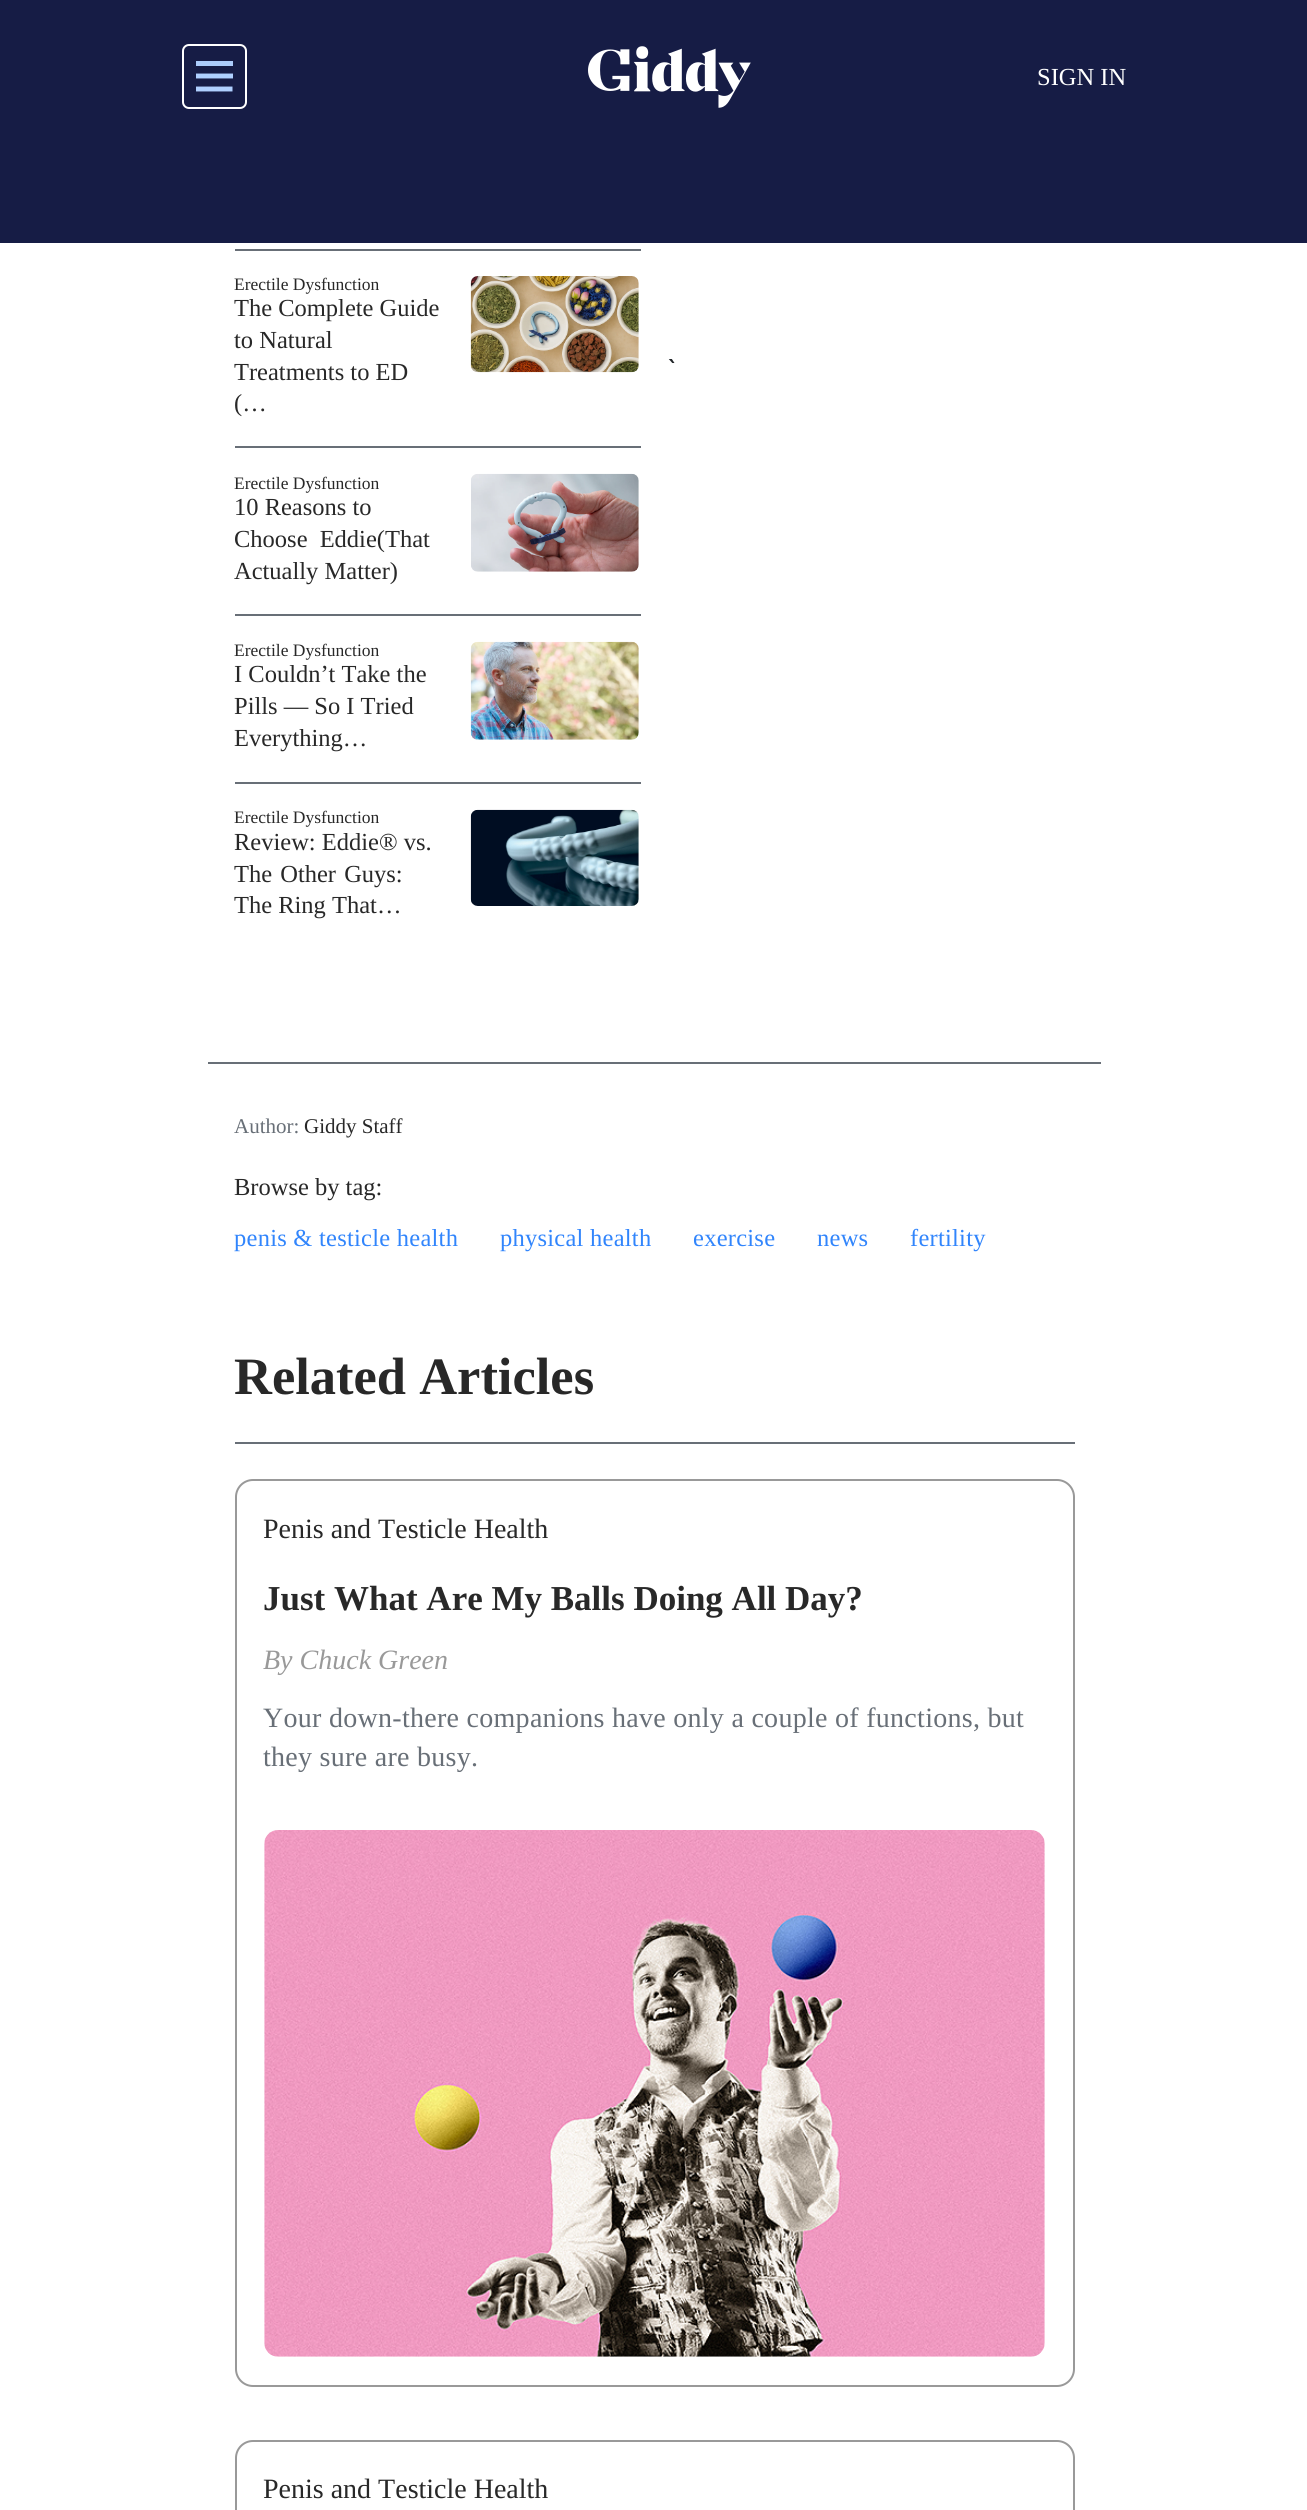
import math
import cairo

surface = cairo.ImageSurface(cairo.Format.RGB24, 1307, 2510)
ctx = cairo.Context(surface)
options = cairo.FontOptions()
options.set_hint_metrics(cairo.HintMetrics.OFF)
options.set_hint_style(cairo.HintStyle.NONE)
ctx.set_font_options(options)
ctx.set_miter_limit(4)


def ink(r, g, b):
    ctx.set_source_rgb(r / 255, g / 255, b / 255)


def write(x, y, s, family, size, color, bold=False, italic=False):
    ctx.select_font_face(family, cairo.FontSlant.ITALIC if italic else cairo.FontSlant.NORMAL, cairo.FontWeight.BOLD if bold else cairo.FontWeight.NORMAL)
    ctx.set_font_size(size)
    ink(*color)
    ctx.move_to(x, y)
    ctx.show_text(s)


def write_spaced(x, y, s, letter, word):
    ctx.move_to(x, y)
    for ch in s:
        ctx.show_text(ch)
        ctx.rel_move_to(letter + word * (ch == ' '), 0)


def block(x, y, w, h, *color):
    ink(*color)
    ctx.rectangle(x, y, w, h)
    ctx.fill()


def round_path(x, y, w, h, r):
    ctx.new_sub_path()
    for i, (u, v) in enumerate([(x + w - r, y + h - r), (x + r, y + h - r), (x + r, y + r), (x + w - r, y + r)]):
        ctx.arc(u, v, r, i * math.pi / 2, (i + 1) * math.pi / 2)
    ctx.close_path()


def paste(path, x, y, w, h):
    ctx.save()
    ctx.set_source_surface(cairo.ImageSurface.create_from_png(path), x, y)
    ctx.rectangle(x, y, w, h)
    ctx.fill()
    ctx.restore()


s1 = dict(family="Liberation Serif", size=24.5, color=(255, 255, 255))
s2 = dict(family="Liberation Serif", size=17.5, color=(40, 40, 40))
s3 = dict(family="Liberation Serif", size=24.5, color=(40, 40, 40))
s4 = dict(family="Roboto", size=28, color=(33, 37, 41))
s5 = dict(family="Liberation Serif", size=21, color=(104, 111, 119))
s6 = dict(family="Liberation Serif", size=21, color=(40, 40, 40))
s7 = dict(family="Liberation Serif", size=52.5, color=(40, 40, 40), bold=True)
s8 = dict(family="Liberation Serif", size=28, color=(40, 40, 40))
s9 = dict(family="Liberation Serif", size=35, color=(40, 40, 40), bold=True)
s10 = dict(family="Liberation Serif", size=28, color=(153, 153, 153), italic=True)

ink(255, 255, 255)
ctx.paint()
block(0, 0, 1307, 243, 22, 28, 69)
round_path(183, 45, 63, 63, 6)
ink(255, 255, 255)
ctx.stroke()
block(196, 61, 37, 5, 172, 204, 251)
ctx.new_path()
ctx.move_to(196, 76)
ctx.line_to(233, 76)
ctx.move_to(196, 89)
ctx.line_to(232.5, 89)
ink(175, 208, 255)
ctx.set_line_width(4.9)
ctx.stroke()
paste("pic1.png", 588, 46, 163, 62)
write(1037, 85, "SIGN IN", **s1)
block(235, 249, 406, 2, 104, 111, 119)
block(235, 446, 406, 2, 104, 111, 119)
write(234, 290, "Erectile Dysfunction", **s2)
write(234, 316, "The Complete Guide", **s3)
write(234, 348, "to Natural", **s3)
write(234, 380, "Treatments to ED", **s3)
write(234, 411, "(…", **s3)
paste("pic2.png", 470, 276, 169, 97)
block(235, 614, 406, 2, 104, 111, 119)
write(234, 489, "Erectile Dysfunction", **s2)
write(234, 515, "10 Reasons to", **s3)
write_spaced(234, 547, "Choose Eddie(That", 0, 6)
write(234, 579, "Actually Matter)", **s3)
paste("pic3.png", 471, 473, 168, 99)
block(235, 782, 406, 2, 104, 111, 119)
write(234, 656, "Erectile Dysfunction", **s2)
write(234, 682, "I Couldn’t Take the", **s3)
write(234, 714, "Pills — So I Tried", **s3)
write(234, 746, "Everything…", **s3)
paste("pic4.png", 470, 641, 169, 99)
write(234, 823, "Erectile Dysfunction", **s2)
write(234, 850, "Review: Eddie® vs.", **s3)
write_spaced(234, 882, "The Other Guys:", 0, 2)
write(234, 913, "The Ring That…", **s3)
paste("pic5.png", 470, 809, 169, 97)
write(668, 380, "`", **s4)
block(208, 1062, 893, 2, 104, 111, 119)
write(234, 1133, "Author:", **s5)
write(304, 1133, "Giddy Staff", **s6)
write(234, 1195, "Browse by tag:", **s3)
ink(49, 133, 252)
write_spaced(234, 1246, "penis & testicle health", 0.25, 0)
write_spaced(500, 1246, "physical health", 0.25, 0)
write_spaced(693, 1246, "exercise", 0.25, 0)
write_spaced(817, 1246, "news", 0.25, 0)
write_spaced(910, 1246, "fertility", 0.25, 0)
block(235, 1442, 840, 2, 104, 111, 119)
write(234, 1394, "Related Articles", **s7)
round_path(236, 1480, 838, 906, 17)
ink(153, 153, 153)
ctx.set_line_width(2)
ctx.stroke()
write(263, 1538, "Penis and Testicle Health", **s8)
write(263, 1610, "Just What Are My Balls Doing All Day?", **s9)
write(263, 1669, "By Chuck Green", **s10)
ctx.select_font_face("Liberation Serif")
ink(104, 111, 119)
write_spaced(263, 1727, "Your down-there companions have only a couple of functions, but", 0.28, 0)
write_spaced(263, 1766, "they sure are busy.", 0.28, 0)
paste("pic6.png", 264, 1830, 781, 527)
round_path(236, 2441, 838, 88, 17)
ink(153, 153, 153)
ctx.stroke()
write(263, 2498, "Penis and Testicle Health", **s8)
surface.write_to_png("screenshot.png")
